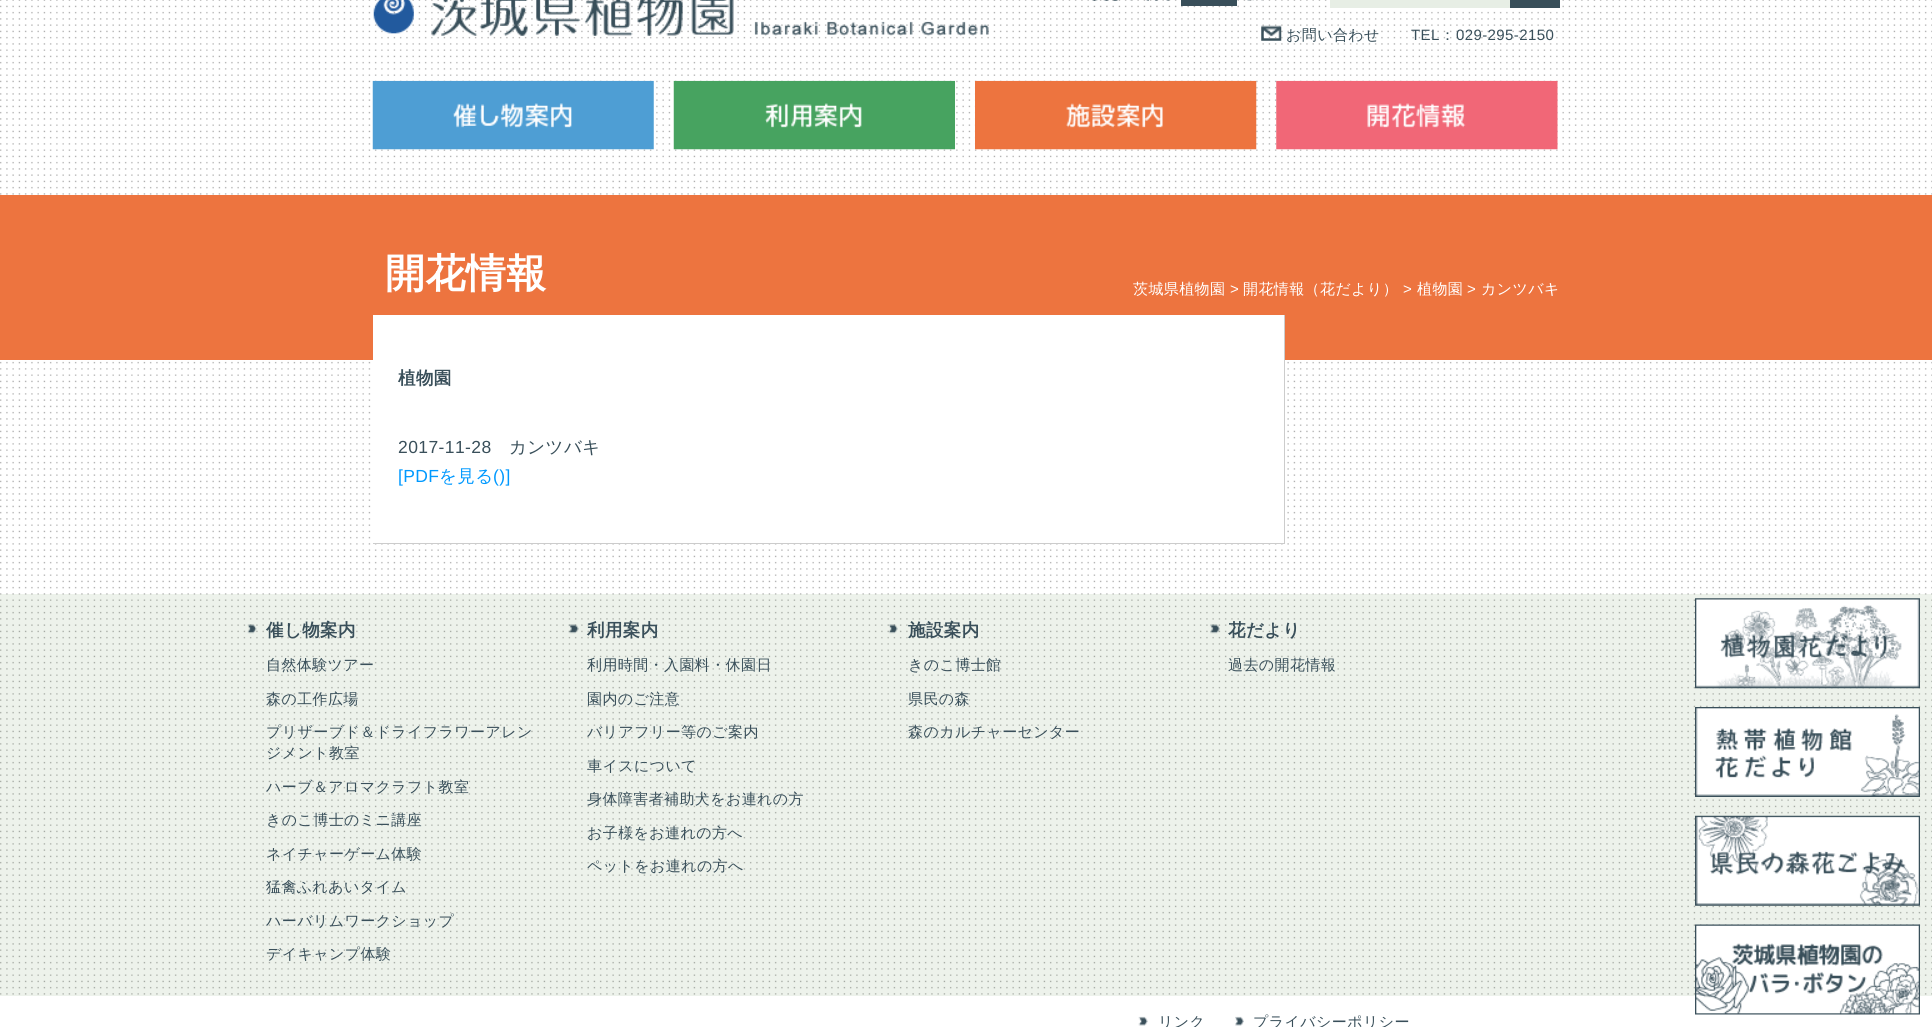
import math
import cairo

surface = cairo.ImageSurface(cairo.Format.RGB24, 1932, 1027)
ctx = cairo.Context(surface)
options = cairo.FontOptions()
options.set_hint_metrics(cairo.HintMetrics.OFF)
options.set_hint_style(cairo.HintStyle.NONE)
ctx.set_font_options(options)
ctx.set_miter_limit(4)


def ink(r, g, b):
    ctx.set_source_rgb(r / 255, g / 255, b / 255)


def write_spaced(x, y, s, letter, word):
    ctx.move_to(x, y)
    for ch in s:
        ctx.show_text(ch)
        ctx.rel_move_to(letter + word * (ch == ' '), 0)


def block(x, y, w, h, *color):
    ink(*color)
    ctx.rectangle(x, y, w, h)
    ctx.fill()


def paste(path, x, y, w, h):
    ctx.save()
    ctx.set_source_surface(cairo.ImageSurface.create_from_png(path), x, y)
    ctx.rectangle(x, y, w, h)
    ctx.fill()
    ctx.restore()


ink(255, 255, 255)
ctx.paint()
paste("pic1.png", 0, 0, 1932, 996)
paste("pic2.png", 373, 0, 616, 36)
paste("pic3.png", 1092, 0, 78, 1)
block(1181, 0, 56, 6, 57, 79, 90)
paste("pic4.png", 1247, 0, 16, 1)
block(1330, 0, 181, 8, 231, 238, 229)
block(1510, 0, 50, 8, 57, 79, 90)
paste("pic5.png", 1261, 25, 21, 16)
ctx.select_font_face("WenQuanYi Zen Hei Medium")
ctx.set_font_size(15)
write_spaced(1286, 40, "お問い合わせ", 0.4, 0)
ctx.select_font_face("Liberation Sans")
write_spaced(1411, 40, "TEL", 0.4, 0)
ctx.select_font_face("WenQuanYi Zen Hei Medium")
write_spaced(1440, 40, "：", 0.4, 0)
ctx.select_font_face("Liberation Sans")
write_spaced(1456, 40, "029-295-2150", 0.4, 0)
paste("pic6.png", 372, 80, 282, 70)
paste("pic7.png", 673, 80, 282, 70)
paste("pic8.png", 975, 80, 282, 70)
paste("pic9.png", 1276, 80, 282, 70)
block(0, 195, 1932, 165, 237, 116, 63)
ctx.select_font_face("WenQuanYi Zen Hei", cairo.FontSlant.NORMAL, cairo.FontWeight.BOLD)
ctx.set_font_size(40)
ink(255, 255, 255)
write_spaced(385, 287, "開花情報", 0.4, 0)
ctx.select_font_face("WenQuanYi Zen Hei Medium")
ctx.set_font_size(15)
write_spaced(1133, 294, "茨城県植物園", 0.4, 0)
ctx.select_font_face("Liberation Sans")
write_spaced(1230, 294, ">", 0.4, 0)
ctx.select_font_face("WenQuanYi Zen Hei Medium")
write_spaced(1243, 294, "開花情報（花だより）", 0.4, 0)
ctx.select_font_face("Liberation Sans")
write_spaced(1403, 294, ">", 0.4, 0)
ctx.select_font_face("WenQuanYi Zen Hei Medium")
write_spaced(1417, 294, "植物園", 0.4, 0)
ctx.select_font_face("Liberation Sans")
write_spaced(1467, 294, ">", 0.4, 0)
ctx.select_font_face("WenQuanYi Zen Hei Medium")
write_spaced(1481, 294, "カンツバキ", 0.4, 0)
block(373, 315, 911, 224, 255, 255, 255)
block(1284, 315, 1, 229, 204, 204, 204)
block(373, 543, 912, 1, 204, 204, 204)
ctx.select_font_face("WenQuanYi Zen Hei", cairo.FontSlant.NORMAL, cairo.FontWeight.BOLD)
ctx.set_font_size(17.5)
ink(57, 79, 90)
write_spaced(398, 384, "植物園", 0.4, 0)
ctx.select_font_face("Liberation Sans")
write_spaced(398, 453, "2017-11-28", 0.4, 0)
ctx.select_font_face("WenQuanYi Zen Hei Medium")
write_spaced(509, 453, "カンツバキ", 0.4, 0)
ctx.select_font_face("Liberation Sans")
ink(0, 153, 255)
write_spaced(398, 482, "[PDF", 0.4, 0)
ctx.select_font_face("WenQuanYi Zen Hei Medium")
write_spaced(439, 482, "を見る", 0.4, 0)
ctx.select_font_face("Liberation Sans")
write_spaced(493, 482, "()]", 0.4, 0)
ctx.set_source_rgba(0.278, 0.486, 0.212, 0.1)
ctx.rectangle(0, 594, 1932, 402)
ctx.fill()
paste("pic10.png", 1695, 598, 225, 91)
paste("pic11.png", 1695, 707, 225, 90)
paste("pic12.png", 1695, 815, 225, 91)
paste("pic13.png", 1695, 924, 225, 91)
paste("pic14.png", 247, 624, 10, 10)
ctx.select_font_face("WenQuanYi Zen Hei", cairo.FontSlant.NORMAL, cairo.FontWeight.BOLD)
ink(57, 79, 90)
write_spaced(266, 636, "催し物案内", 0.4, 0)
ctx.select_font_face("WenQuanYi Zen Hei Medium")
ctx.set_font_size(15)
write_spaced(266, 670, "自然体験ツアー", 0.4, 0)
write_spaced(266, 704, "森の工作広場", 0.4, 0)
write_spaced(266, 737, "プリザーブド＆ドライフラワーアレン", 0.4, 0)
write_spaced(266, 758, "ジメント教室", 0.4, 0)
write_spaced(266, 792, "ハーブ＆アロマクラフト教室", 0.4, 0)
write_spaced(266, 825, "きのこ博士のミニ講座", 0.4, 0)
write_spaced(266, 859, "ネイチャーゲーム体験", 0.4, 0)
write_spaced(266, 892, "猛禽ふれあいタイム", 0.4, 0)
write_spaced(266, 926, "ハーバリムワークショップ", 0.4, 0)
write_spaced(266, 959, "デイキャンプ体験", 0.4, 0)
paste("pic15.png", 568, 624, 11, 10)
ctx.select_font_face("WenQuanYi Zen Hei", cairo.FontSlant.NORMAL, cairo.FontWeight.BOLD)
ctx.set_font_size(17.5)
write_spaced(587, 636, "利用案内", 0.4, 0)
ctx.select_font_face("WenQuanYi Zen Hei Medium")
ctx.set_font_size(15)
write_spaced(587, 670, "利用時間・入園料・休園日", 0.4, 0)
write_spaced(587, 704, "園内のご注意", 0.4, 0)
write_spaced(587, 737, "バリアフリー等のご案内", 0.4, 0)
write_spaced(587, 771, "車イスについて", 0.4, 0)
write_spaced(587, 804, "身体障害者補助犬をお連れの方", 0.4, 0)
write_spaced(587, 838, "お子様をお連れの方へ", 0.4, 0)
write_spaced(587, 871, "ペットをお連れの方へ", 0.4, 0)
paste("pic16.png", 888, 624, 10, 10)
ctx.select_font_face("WenQuanYi Zen Hei", cairo.FontSlant.NORMAL, cairo.FontWeight.BOLD)
ctx.set_font_size(17.5)
write_spaced(908, 636, "施設案内", 0.4, 0)
ctx.select_font_face("WenQuanYi Zen Hei Medium")
ctx.set_font_size(15)
write_spaced(908, 670, "きのこ博士館", 0.4, 0)
write_spaced(908, 704, "県民の森", 0.4, 0)
write_spaced(908, 737, "森のカルチャーセンター", 0.4, 0)
paste("pic17.png", 1210, 624, 10, 10)
ctx.select_font_face("WenQuanYi Zen Hei", cairo.FontSlant.NORMAL, cairo.FontWeight.BOLD)
ctx.set_font_size(17.5)
write_spaced(1228, 636, "花だより", 0.4, 0)
ctx.select_font_face("WenQuanYi Zen Hei Medium")
ctx.set_font_size(15)
write_spaced(1228, 670, "過去の開花情報", 0.4, 0)
paste("pic18.png", 1138, 1016, 10, 10)
write_spaced(1158, 1027, "リンク", 0.4, 0)
paste("pic19.png", 1235, 1016, 9, 10)
write_spaced(1253, 1027, "プライバシーポリシー", 0.4, 0)
surface.write_to_png("screenshot.png")
